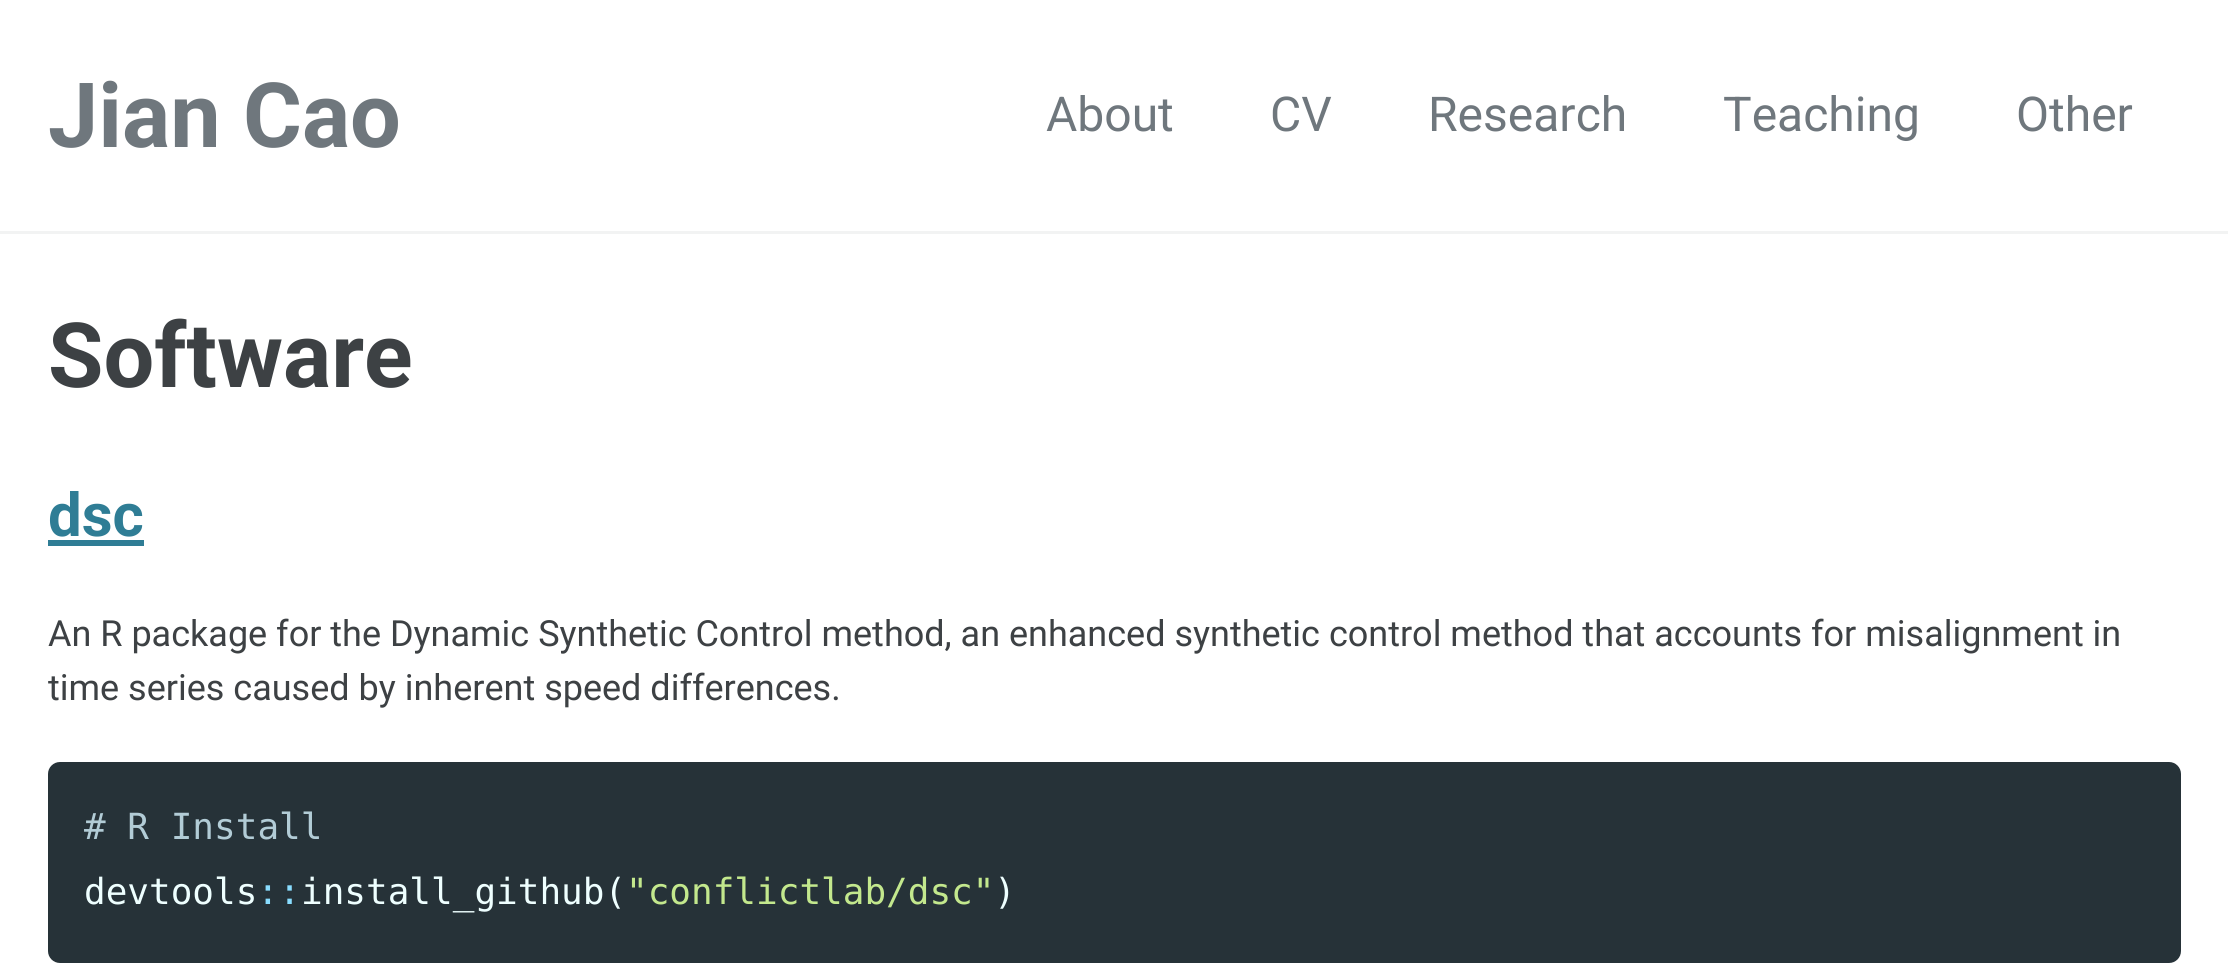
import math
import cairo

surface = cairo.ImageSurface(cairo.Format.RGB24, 2228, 980)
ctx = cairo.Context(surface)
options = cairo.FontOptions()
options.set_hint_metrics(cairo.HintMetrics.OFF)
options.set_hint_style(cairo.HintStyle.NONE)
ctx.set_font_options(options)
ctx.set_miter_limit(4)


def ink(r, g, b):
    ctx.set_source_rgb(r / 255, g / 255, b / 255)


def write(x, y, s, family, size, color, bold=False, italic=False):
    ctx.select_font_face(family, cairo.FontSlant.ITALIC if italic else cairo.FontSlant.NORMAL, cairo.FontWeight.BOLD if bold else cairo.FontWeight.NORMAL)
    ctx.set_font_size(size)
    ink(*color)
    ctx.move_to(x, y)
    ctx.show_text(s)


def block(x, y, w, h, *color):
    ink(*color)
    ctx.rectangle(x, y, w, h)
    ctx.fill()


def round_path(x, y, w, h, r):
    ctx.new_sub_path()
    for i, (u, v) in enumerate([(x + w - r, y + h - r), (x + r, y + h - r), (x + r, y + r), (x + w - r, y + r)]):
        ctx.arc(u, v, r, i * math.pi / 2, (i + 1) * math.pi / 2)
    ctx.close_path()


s1 = dict(family="Roboto", size=90, color=(111, 119, 125), bold=True)
s2 = dict(family="Roboto", size=48, color=(111, 119, 125))
s3 = dict(family="Roboto", size=90, color=(61, 65, 68), bold=True)
s4 = dict(family="Roboto", size=60, color=(47, 125, 149), bold=True)
s5 = dict(family="Roboto", size=36, color=(61, 65, 68))
s6 = dict(family="DejaVu Sans Mono", size=36, color=(178, 204, 214))
s7 = dict(family="DejaVu Sans Mono", size=36, color=(238, 255, 255))
s8 = dict(family="DejaVu Sans Mono", size=36, color=(137, 221, 255))
s9 = dict(family="DejaVu Sans Mono", size=36, color=(195, 232, 141))

ink(255, 255, 255)
ctx.paint()
block(0, 231, 2228, 3, 242, 243, 243)
write(48, 147, "Jian Cao", **s1)
write(1046, 131, "About", **s2)
write(1270, 131, "CV", **s2)
write(1428, 131, "Research", **s2)
write(1723, 131, "Teaching", **s2)
write(2016, 131, "Other", **s2)
write(48, 387, "Software", **s3)
write(48, 536, "dsc", **s4)
block(48, 540, 96, 6, 47, 125, 149)
write(48, 646, "An R package for the Dynamic Synthetic Control method, an enhanced synthetic control method that accounts for misalignment in", **s5)
write(48, 700, "time series caused by inherent speed differences.", **s5)
ink(38, 50, 56)
round_path(48, 762, 2133, 201, 12)
ctx.fill()
write(84, 839, "# R Install", **s6)
write(84, 904, "devtools", **s7)
write(257, 904, "::", **s8)
write(301, 904, "install_github(", **s7)
write(626, 904, "\"conflictlab/dsc\"", **s9)
write(994, 904, ")", **s7)
surface.write_to_png("screenshot.png")
